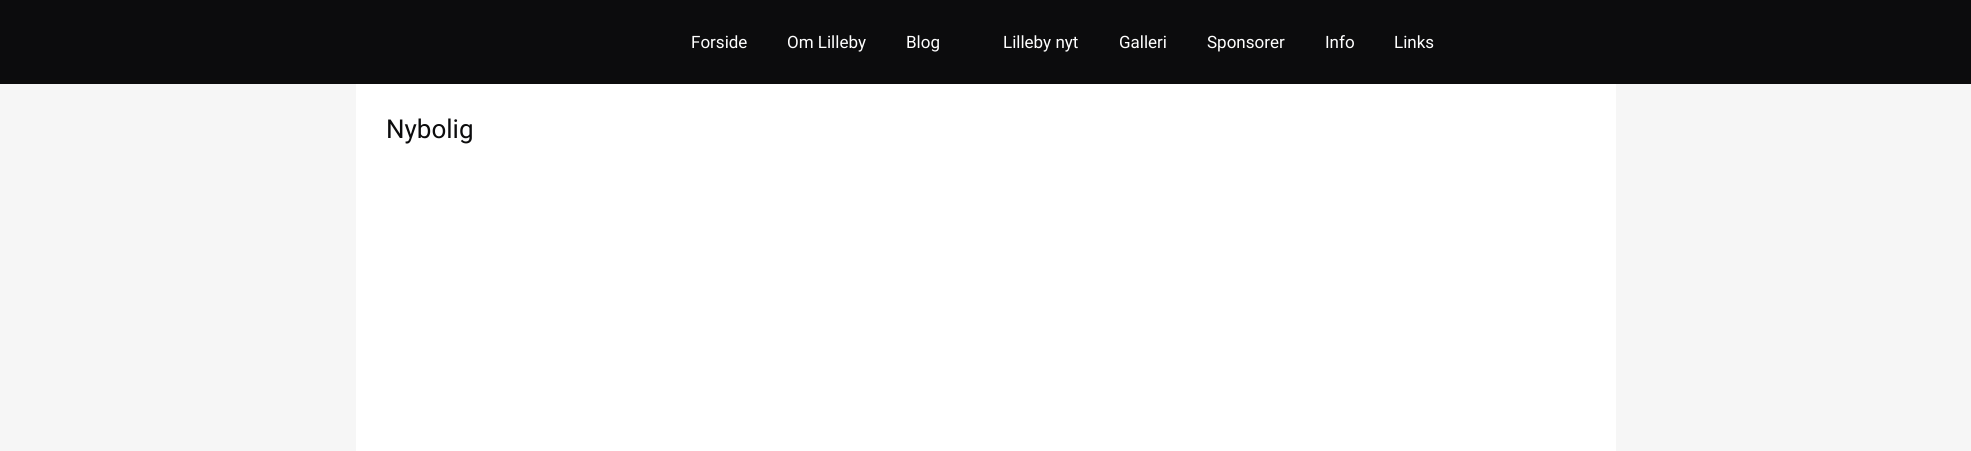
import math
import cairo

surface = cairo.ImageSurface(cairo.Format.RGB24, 1971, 451)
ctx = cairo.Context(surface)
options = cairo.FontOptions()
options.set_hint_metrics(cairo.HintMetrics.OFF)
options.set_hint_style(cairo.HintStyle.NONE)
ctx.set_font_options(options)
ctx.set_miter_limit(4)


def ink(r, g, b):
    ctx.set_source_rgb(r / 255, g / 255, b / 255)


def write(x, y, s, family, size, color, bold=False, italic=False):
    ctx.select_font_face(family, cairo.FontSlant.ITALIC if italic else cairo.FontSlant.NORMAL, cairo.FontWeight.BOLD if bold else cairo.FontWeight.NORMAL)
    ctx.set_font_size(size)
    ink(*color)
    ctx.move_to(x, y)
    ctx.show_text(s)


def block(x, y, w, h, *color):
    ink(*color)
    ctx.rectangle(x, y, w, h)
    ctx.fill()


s1 = dict(family="Roboto", size=17, color=(255, 255, 255))
s2 = dict(family="Roboto", size=26, color=(12, 12, 13))

ink(246, 246, 246)
ctx.paint()
block(0, 0, 1971, 84, 12, 12, 13)
write(691, 48, "Forside", **s1)
write(787, 48, "Om Lilleby", **s1)
write(906, 48, "Blog", **s1)
write(1003, 48, "Lilleby nyt", **s1)
write(1119, 48, "Galleri", **s1)
write(1207, 48, "Sponsorer", **s1)
write(1325, 48, "Info", **s1)
write(1394, 48, "Links", **s1)
block(356, 84, 1260, 367, 255, 255, 255)
write(386, 138, "Nybolig", **s2)
surface.write_to_png("screenshot.png")
